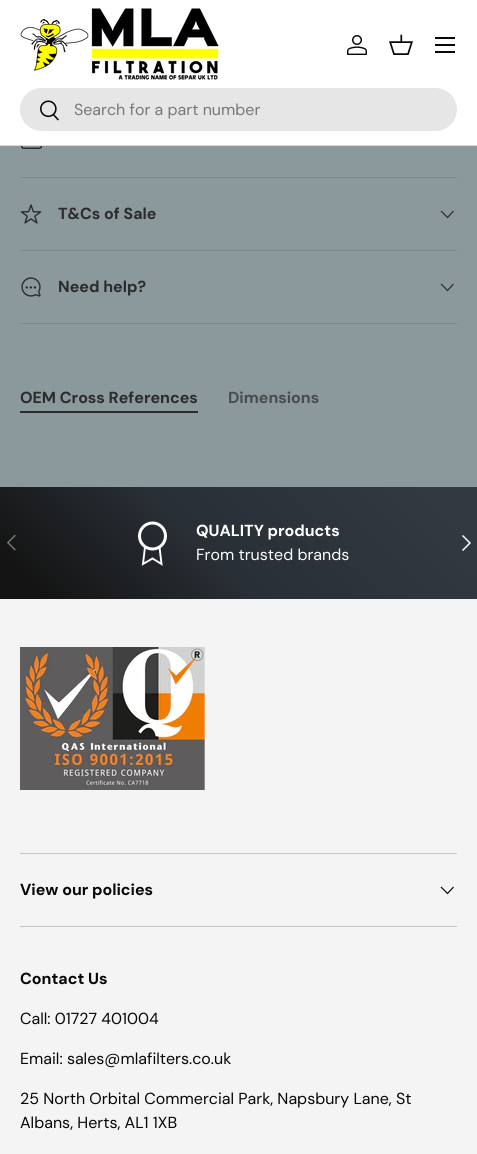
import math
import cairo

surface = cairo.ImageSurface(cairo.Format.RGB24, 477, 1154)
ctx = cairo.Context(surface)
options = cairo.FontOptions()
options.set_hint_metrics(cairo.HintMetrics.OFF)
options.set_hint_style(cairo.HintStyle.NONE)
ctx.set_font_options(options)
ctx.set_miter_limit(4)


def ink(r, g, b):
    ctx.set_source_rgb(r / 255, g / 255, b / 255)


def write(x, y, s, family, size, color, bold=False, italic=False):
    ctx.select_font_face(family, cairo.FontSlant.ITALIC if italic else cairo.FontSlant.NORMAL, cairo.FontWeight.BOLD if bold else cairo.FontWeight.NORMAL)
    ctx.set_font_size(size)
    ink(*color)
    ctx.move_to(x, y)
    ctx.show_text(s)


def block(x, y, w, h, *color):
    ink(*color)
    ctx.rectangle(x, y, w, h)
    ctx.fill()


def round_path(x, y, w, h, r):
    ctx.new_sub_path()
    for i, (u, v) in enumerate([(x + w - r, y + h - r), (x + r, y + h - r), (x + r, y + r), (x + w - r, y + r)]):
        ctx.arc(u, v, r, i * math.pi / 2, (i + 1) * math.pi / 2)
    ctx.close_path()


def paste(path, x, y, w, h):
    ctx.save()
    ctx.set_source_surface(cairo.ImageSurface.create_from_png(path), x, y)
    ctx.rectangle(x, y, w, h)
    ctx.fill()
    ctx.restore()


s1 = dict(family="DM Sans", size=16, color=(119, 119, 119))
s2 = dict(family="DM Sans", size=16, color=(42, 43, 42), bold=True)
s3 = dict(family="DM Sans", size=16, color=(71, 76, 76), bold=True)
s4 = dict(family="DM Sans", size=16, color=(255, 255, 255), bold=True)
s5 = dict(family="DM Sans", size=16, color=(255, 255, 255))
s6 = dict(family="DM Sans", size=16, color=(7, 7, 7), bold=True)
s7 = dict(family="DM Sans", size=16, color=(7, 7, 7))

ink(139, 152, 156)
ctx.paint()
round_path(21.75, 133.75, 19.5, 14.5, 1.75)
ink(42, 43, 42)
ctx.set_line_width(1.5)
ctx.stroke()
block(0, 0, 477, 145, 255, 255, 255)
block(0, 145, 477, 1, 218, 218, 218)
paste("pic1.png", 20, 8, 199, 72)
paste("pic2.png", 347, 35, 20, 20)
paste("pic3.png", 389, 34, 24, 21)
block(435, 37, 20, 2, 7, 7, 7)
block(435, 51, 20, 2, 7, 7, 7)
block(435, 44, 20, 2, 7, 7, 7)
ink(230, 230, 230)
round_path(20, 88, 437, 43, 21.5)
ctx.fill()
paste("pic4.png", 40, 100, 19, 21)
write(74, 115, "Search for a part number", **s1)
block(20, 177, 437, 1, 124, 136, 139)
block(20, 250, 437, 1, 124, 136, 139)
paste("pic5.png", 20, 204, 22, 20)
write(58, 219, "T&Cs of Sale", **s2)
ctx.new_path()
ctx.move_to(453.5, 211)
ctx.line_to(447.5, 217.5)
ctx.line_to(441, 211)
ctx.set_line_width(1.2)
ctx.stroke()
block(20, 323, 437, 1, 124, 136, 139)
paste("pic6.png", 21, 277, 20, 20)
write(58, 292, "Need help?", **s2)
ctx.new_path()
ctx.move_to(453.5, 284)
ctx.line_to(447.5, 290.5)
ctx.line_to(441, 284)
ctx.stroke()
write(20, 403, "OEM Cross References", **s2)
block(20, 411, 178, 2, 42, 43, 42)
write(228, 403, "Dimensions", **s3)
gradient = cairo.LinearGradient(386, 396, 91, 690)
gradient.add_color_stop_rgba(0.08, 0.196, 0.224, 0.251, 1)
gradient.add_color_stop_rgba(0.56, 0.161, 0.184, 0.212, 1)
gradient.add_color_stop_rgba(0.92, 0.078, 0.078, 0.078, 1)
ctx.set_source(gradient)
ctx.rectangle(0, 487, 477, 112)
ctx.fill()
ctx.arc(152.5, 536, 13, 0, 2 * math.pi)
ink(255, 255, 255)
ctx.set_line_width(3)
ctx.stroke()
ctx.new_path()
ctx.move_to(145, 547)
ctx.line_to(143, 564)
ctx.line_to(152.5, 558.5)
ctx.line_to(161.5, 564)
ctx.line_to(159.5, 547)
ctx.set_line_width(1.9)
ctx.stroke()
write(196, 536, "QUALITY products", **s4)
write(196, 560, "From trusted brands", **s5)
paste("pic7.png", 7, 534, 9, 17)
ctx.new_path()
ctx.move_to(462.5, 535.5)
ctx.line_to(470, 543)
ctx.line_to(462.5, 550.5)
ctx.set_line_width(1.5)
ctx.stroke()
block(0, 599, 477, 555, 244, 244, 244)
paste("pic8.png", 20, 647, 185, 143)
block(20, 853, 437, 1, 197, 197, 197)
block(20, 926, 437, 1, 197, 197, 197)
write(20, 895, "View our policies", **s6)
ctx.new_path()
ctx.move_to(453.5, 887)
ctx.line_to(447.5, 893.5)
ctx.line_to(441, 887)
ctx.set_line_width(1.2)
ctx.stroke()
write(20, 984, "Contact Us", **s6)
write(20, 1024, "Call: 01727 401004", **s7)
write(20, 1064, "Email: sales@mlafilters.co.uk", **s7)
write(20, 1104, "25 North Orbital Commercial Park, Napsbury Lane, St", **s7)
write(20, 1128, "Albans, Herts, AL1 1XB", **s7)
surface.write_to_png("screenshot.png")
